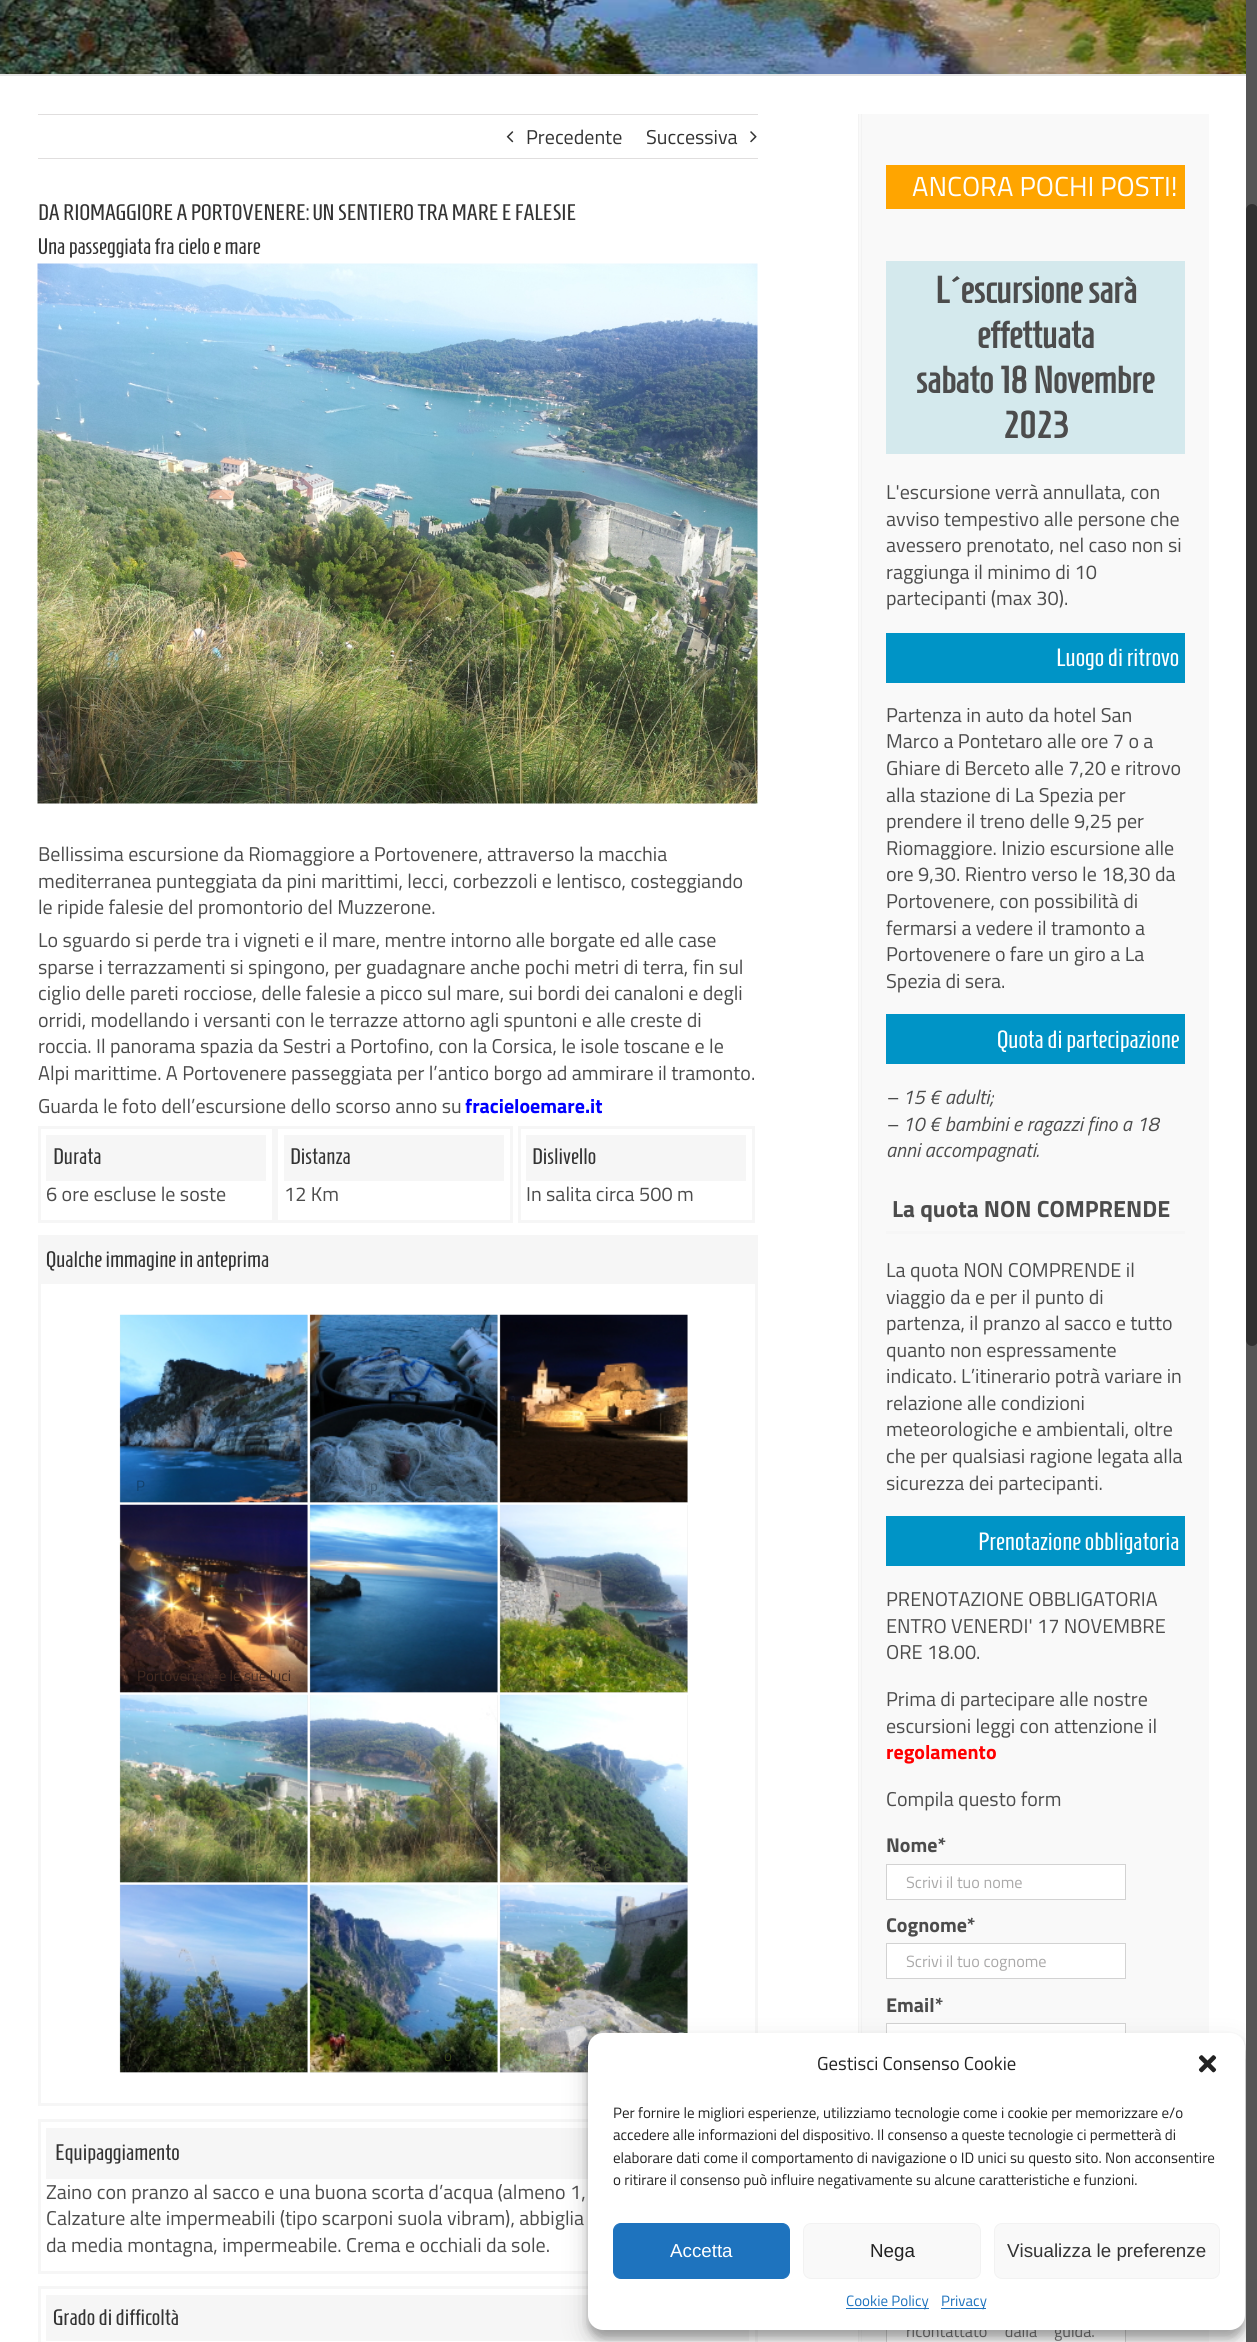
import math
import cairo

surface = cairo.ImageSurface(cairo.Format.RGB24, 1257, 2342)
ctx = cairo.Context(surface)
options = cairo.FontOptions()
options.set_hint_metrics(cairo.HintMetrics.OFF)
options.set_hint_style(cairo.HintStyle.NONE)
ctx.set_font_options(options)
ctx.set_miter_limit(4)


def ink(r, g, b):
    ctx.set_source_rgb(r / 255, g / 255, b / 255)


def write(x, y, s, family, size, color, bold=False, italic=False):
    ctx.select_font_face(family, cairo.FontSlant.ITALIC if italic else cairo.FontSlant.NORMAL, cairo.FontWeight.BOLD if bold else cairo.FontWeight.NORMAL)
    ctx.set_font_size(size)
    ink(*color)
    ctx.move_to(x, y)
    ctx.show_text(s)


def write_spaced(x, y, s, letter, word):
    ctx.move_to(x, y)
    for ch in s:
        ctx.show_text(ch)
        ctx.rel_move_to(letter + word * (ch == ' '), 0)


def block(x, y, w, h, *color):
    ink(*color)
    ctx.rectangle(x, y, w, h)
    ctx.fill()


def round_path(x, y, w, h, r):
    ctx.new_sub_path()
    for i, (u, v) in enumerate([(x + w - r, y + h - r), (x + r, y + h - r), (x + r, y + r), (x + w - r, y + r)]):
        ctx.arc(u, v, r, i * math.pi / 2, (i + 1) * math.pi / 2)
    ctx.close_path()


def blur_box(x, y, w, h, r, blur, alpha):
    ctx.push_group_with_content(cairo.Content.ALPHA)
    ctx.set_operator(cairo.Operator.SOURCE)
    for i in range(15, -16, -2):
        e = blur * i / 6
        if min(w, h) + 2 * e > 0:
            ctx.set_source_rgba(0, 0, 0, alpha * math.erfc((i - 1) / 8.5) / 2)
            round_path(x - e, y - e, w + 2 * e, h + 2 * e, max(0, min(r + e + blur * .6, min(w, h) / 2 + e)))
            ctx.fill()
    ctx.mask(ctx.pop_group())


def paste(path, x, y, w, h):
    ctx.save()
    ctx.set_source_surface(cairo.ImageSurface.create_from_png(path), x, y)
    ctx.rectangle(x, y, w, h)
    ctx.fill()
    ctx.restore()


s1 = dict(family="Titillium Web", size=20, color=(51, 51, 51))
s2 = dict(family="Homenaje", size=22.5, color=(51, 51, 51))
s3 = dict(family="Titillium Web", size=20, color=(76, 76, 76))
s4 = dict(family="Titillium Web", size=20, color=(0, 0, 255), bold=True)
s5 = dict(family="Titillium Web", size=15, color=(17, 64, 107))
s6 = dict(family="Titillium Web", size=15, color=(68, 94, 117))
s7 = dict(family="Titillium Web", size=15, color=(66, 42, 33))
s8 = dict(family="Titillium Web", size=15, color=(91, 102, 61))
s9 = dict(family="Titillium Web", size=15, color=(81, 86, 57))
s10 = dict(family="Titillium Web", size=15, color=(54, 68, 22))
s11 = dict(family="Titillium Web", size=27.5, color=(255, 255, 255))
s12 = dict(family="Homenaje", size=37.5, color=(76, 76, 76), bold=True)
s13 = dict(family="Homenaje", size=25, color=(255, 255, 255))
s14 = dict(family="Titillium Web", size=20, color=(76, 76, 76), italic=True)
s15 = dict(family="Titillium Web", size=23.4, color=(76, 76, 76), bold=True)
s16 = dict(family="Titillium Web", size=20, color=(255, 0, 0), bold=True)
s17 = dict(family="Titillium Web", size=20, color=(76, 76, 76), bold=True)
s18 = dict(family="Titillium Web", size=16.25, color=(170, 169, 169))
s19 = dict(family="Titillium Web", size=16.25, color=(117, 117, 117))
s20 = dict(family="Titillium Web", size=18.75, color=(34, 34, 34))
s21 = dict(family="Titillium Web", size=15, color=(34, 34, 34))
s22 = dict(family="Liberation Sans", size=18.75, color=(255, 255, 255))
s23 = dict(family="Liberation Sans", size=18.75, color=(34, 34, 34))
s24 = dict(family="Liberation Sans", size=18.75, color=(51, 51, 51))
s25 = dict(family="Titillium Web", size=15, color=(30, 115, 190))

ink(255, 255, 255)
ctx.paint()
paste("pic1.png", 0, 0, 1246, 74)
block(0, 74, 1246, 2, 229, 229, 229)
block(38, 114, 720, 1, 224, 222, 222)
block(38, 158, 720, 1, 224, 222, 222)
paste("pic2.png", 506, 131, 8, 12)
write(526, 144, "Precedente", **s1)
write(646, 144, "Successiva", **s1)
paste("pic3.png", 750, 131, 7, 12)
write(38, 220, "DA RIOMAGGIORE A PORTOVENERE: UN SENTIERO TRA MARE E FALESIE", **s2)
write(38, 254, "Una passeggiata fra cielo e mare", **s2)
paste("pic4.png", 37, 263, 721, 541)
write(38, 861, "Bellissima escursione da Riomaggiore a Portovenere, attraverso la macchia", **s3)
write(38, 888, "mediterranea punteggiata da pini marittimi, lecci, corbezzoli e lentisco, costeggiando", **s3)
write(38, 914, "le ripide falesie del promontorio del Muzzerone.", **s3)
write(38, 947, "Lo sguardo si perde tra i vigneti e il mare, mentre intorno alle borgate ed alle case", **s3)
write(38, 974, "sparse i terrazzamenti si spingono, per guadagnare anche pochi metri di terra, fin sul", **s3)
write(38, 1000, "ciglio delle pareti rocciose, delle falesie a picco sul mare, sui bordi dei canaloni e degli", **s3)
write(38, 1027, "orridi, modellando i versanti con le terrazze attorno agli spuntoni e alle creste di", **s3)
write(38, 1053, "roccia. Il panorama spazia da Sestri a Portofino, con la Corsica, le isole toscane e le", **s3)
write(38, 1080, "Alpi marittime. A Portovenere passeggiata per l’antico borgo ad ammirare il tramonto.", **s3)
write(38, 1113, "Guarda le foto dell’escursione dello scorso anno su", **s3)
write(465, 1113, "fracieloemare.it", **s4)
ctx.rectangle(39.5, 1127.5, 234, 94)
ink(246, 246, 246)
ctx.set_line_width(3)
ctx.stroke()
block(46, 1135, 220, 46, 246, 246, 246)
write(53, 1164, "Durata", **s2)
write(46, 1201, "6 ore escluse le soste", **s3)
ctx.rectangle(276.5, 1127.5, 235, 94)
ink(246, 246, 246)
ctx.stroke()
block(284, 1135, 220, 46, 246, 246, 246)
write(290, 1164, "Distanza", **s2)
write(284, 1201, "12 Km", **s3)
ctx.rectangle(519.5, 1127.5, 234, 94)
ink(246, 246, 246)
ctx.stroke()
block(526, 1135, 220, 46, 246, 246, 246)
write(532, 1164, "Dislivello", **s2)
write(526, 1201, "In salita circa 500 m", **s3)
ctx.rectangle(39.5, 1236.5, 717, 868)
ink(246, 246, 246)
ctx.stroke()
block(41, 1238, 714, 46, 246, 246, 246)
write(46, 1267, "Qualche immagine in anteprima", **s2)
block(120, 1315, 188, 188, 234, 234, 234)
paste("pic5.png", 119, 1314, 189, 189)
write(136, 1491, "P", **s5)
block(310, 1315, 188, 188, 234, 234, 234)
paste("pic6.png", 309, 1314, 189, 189)
write(370, 1491, "p", **s6)
block(500, 1315, 188, 188, 234, 234, 234)
paste("pic7.png", 499, 1314, 189, 189)
block(120, 1505, 188, 188, 234, 234, 234)
paste("pic8.png", 119, 1504, 189, 189)
write(137, 1681, "Portovenere e le sue luci", **s7)
block(310, 1505, 188, 188, 234, 234, 234)
paste("pic9.png", 309, 1504, 189, 189)
block(500, 1505, 188, 188, 234, 234, 234)
paste("pic10.png", 499, 1504, 189, 189)
block(120, 1695, 188, 188, 234, 234, 234)
paste("pic11.png", 119, 1694, 189, 189)
write(255, 1871, "e", **s8)
write(279, 1871, "r", **s8)
block(310, 1695, 188, 188, 234, 234, 234)
paste("pic12.png", 309, 1695, 189, 188)
block(500, 1695, 188, 188, 234, 234, 234)
paste("pic13.png", 499, 1694, 189, 189)
write(545, 1871, "P", **s9)
write(590, 1871, "ia e", **s9)
block(120, 1885, 188, 188, 234, 234, 234)
paste("pic14.png", 119, 1884, 189, 189)
block(310, 1885, 188, 188, 234, 234, 234)
paste("pic15.png", 309, 1884, 189, 189)
write(444, 2061, "o", **s10)
block(500, 1885, 188, 188, 234, 234, 234)
paste("pic16.png", 499, 1884, 189, 189)
ctx.rectangle(39.5, 2120.5, 717, 152)
ink(246, 246, 246)
ctx.stroke()
block(46, 2128, 542, 51, 246, 246, 246)
write(55, 2160, "Equipaggiamento", **s2)
write(46, 2199, "Zaino con pranzo al sacco e una buona scorta d’acqua (almeno 1,", **s3)
write(46, 2225, "Calzature alte impermeabili (tipo scarponi suola vibram), abbiglia", **s3)
write(46, 2252, "da media montagna, impermeabile. Crema e occhiali da sole.", **s3)
ctx.rectangle(39.5, 2287.5, 717, 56)
ink(246, 246, 246)
ctx.stroke()
block(46, 2295, 703, 46, 246, 246, 246)
write(53, 2325, "Grado di difficoltà", **s2)
block(859, 114, 350, 2228, 249, 249, 249)
block(858, 114, 1, 2228, 243, 243, 243)
block(861, 114, 1, 2228, 243, 243, 243)
block(886, 165, 299, 44, 255, 165, 0)
write(912, 196, "ANCORA POCHI POSTI!", **s11)
block(886, 261, 299, 193, 212, 233, 237)
write(935, 303, "L´escursione sarà", **s12)
write(977, 348, "effettuata", **s12)
write(916, 393, "sabato 18 Novembre", **s12)
write(1003, 438, "2023", **s12)
write(886, 499, "L'escursione verrà annullata, con", **s3)
write(886, 526, "avviso tempestivo alle persone che", **s3)
write(886, 552, "avessero prenotato, nel caso non si", **s3)
write(886, 579, "raggiunga il minimo di 10", **s3)
write(886, 605, "partecipanti (max 30).", **s3)
block(886, 633, 299, 50, 0, 148, 198)
write(1056, 666, "Luogo di ritrovo", **s13)
write(886, 722, "Partenza in auto da hotel San", **s3)
write(886, 748, "Marco a Pontetaro alle ore 7 o a", **s3)
write(886, 775, "Ghiare di Berceto alle 7,20 e ritrovo", **s3)
write(886, 802, "alla stazione di La Spezia per", **s3)
write(886, 828, "prendere il treno delle 9,25 per", **s3)
write(886, 855, "Riomaggiore. Inizio escursione alle", **s3)
write(886, 881, "ore 9,30. Rientro verso le 18,30 da", **s3)
write(886, 908, "Portovenere, con possibilità di", **s3)
write(886, 935, "fermarsi a vedere il tramonto a", **s3)
write(886, 961, "Portovenere o fare un giro a La", **s3)
write(886, 988, "Spezia di sera.", **s3)
block(886, 1014, 299, 50, 0, 148, 198)
write(997, 1048, "Quota di partecipazione", **s13)
write(886, 1104, "– 15 € adulti;", **s14)
write(886, 1131, "– 10 € bambini e ragazzi fino a 18", **s14)
write(886, 1157, "anni accompagnati.", **s14)
block(886, 1231, 299, 3, 246, 246, 246)
write(892, 1217, "La quota NON COMPRENDE", **s15)
write(886, 1277, "La quota NON COMPRENDE il", **s3)
write(886, 1304, "viaggio da e per il punto di", **s3)
write(886, 1330, "partenza, il pranzo al sacco e tutto", **s3)
write(886, 1357, "quanto non espressamente", **s3)
write(886, 1383, "indicato. L’itinerario potrà variare in", **s3)
write(886, 1410, "relazione alle condizioni", **s3)
write(886, 1436, "meteorologiche e ambientali, oltre", **s3)
write(886, 1463, "che per qualsiasi ragione legata alla", **s3)
write(886, 1490, "sicurezza dei partecipanti.", **s3)
block(886, 1516, 299, 50, 0, 148, 198)
write(978, 1550, "Prenotazione obbligatoria", **s13)
write(886, 1606, "PRENOTAZIONE OBBLIGATORIA", **s3)
write(886, 1633, "ENTRO VENERDI' 17 NOVEMBRE", **s3)
write(886, 1659, "ORE 18.00.", **s3)
write(886, 1706, "Prima di partecipare alle nostre", **s3)
write(886, 1733, "escursioni leggi con attenzione il", **s3)
write(886, 1759, "regolamento", **s16)
write(886, 1806, "Compila questo form", **s3)
write(886, 1852, "Nome*", **s17)
ink(255, 255, 255)
ctx.rectangle(886.5, 1864.5, 239, 35)
ctx.fill_preserve()
ink(210, 210, 210)
ctx.set_line_width(1)
ctx.stroke()
write(906, 1888, "Scrivi il tuo nome", **s18)
write(886, 1932, "Cognome*", **s17)
ink(255, 255, 255)
ctx.rectangle(886.5, 1943.5, 239, 35)
ctx.fill_preserve()
ink(210, 210, 210)
ctx.stroke()
write(906, 1967, "Scrivi il tuo cognome", **s18)
write(886, 2012, "Email*", **s17)
block(887, 2024, 238, 9, 255, 255, 255)
ctx.rectangle(886.5, 2023.5, 239, 35)
ink(210, 210, 210)
ctx.stroke()
block(887, 2330, 238, 12, 255, 255, 255)
ctx.rectangle(886.5, 2183.5, 239, 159)
ink(210, 210, 210)
ctx.stroke()
ctx.select_font_face("Titillium Web")
ctx.set_font_size(16.25)
ink(117, 117, 117)
write_spaced(906, 2337, "ricontattato dalla", 0, 14)
write(1054, 2337, "guida.", **s19)
ink(0, 0, 0)
blur_box(588, 2040, 657, 298, 15, 4, 0.23)
blur_box(588, 2045, 657, 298, 15, 12.5, 0.19)
block(1246, 0, 11, 2342, 85, 85, 85)
ink(48, 48, 48)
round_path(1246, 204, 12, 1142, 6)
ctx.fill()
ink(255, 255, 255)
round_path(588, 2033, 657, 297, 15)
ctx.fill()
write(817, 2070, "Gestisci Consenso Cookie", **s20)
paste("pic17.png", 1198, 2055, 19, 18)
write(613, 2118, "Per fornire le migliori esperienze, utilizziamo tecnologie come i cookie per memorizzare e/o", **s21)
write(613, 2140, "accedere alle informazioni del dispositivo. Il consenso a queste tecnologie ci permetterà di", **s21)
write(613, 2163, "elaborare dati come il comportamento di navigazione o ID unici su questo sito. Non acconsentire", **s21)
write(613, 2185, "o ritirare il consenso può influire negativamente su alcune caratteristiche e funzioni.", **s21)
ink(30, 115, 190)
round_path(613.5, 2223.5, 176, 55, 7.5)
ctx.fill_preserve()
ctx.stroke()
write(670, 2257, "Accetta", **s22)
ink(249, 249, 249)
round_path(803.5, 2223.5, 177, 55, 7.5)
ctx.fill_preserve()
ink(242, 242, 242)
ctx.stroke()
write(870, 2257, "Nega", **s23)
ink(249, 249, 249)
round_path(994.5, 2223.5, 225, 55, 7.5)
ctx.fill_preserve()
ink(242, 242, 242)
ctx.stroke()
write(1007, 2257, "Visualizza le preferenze", **s24)
block(846, 2308, 83, 1, 30, 115, 190)
write(846, 2306, "Cookie Policy", **s25)
block(941, 2308, 45, 1, 30, 115, 190)
write(941, 2306, "Privacy", **s25)
surface.write_to_png("screenshot.png")
